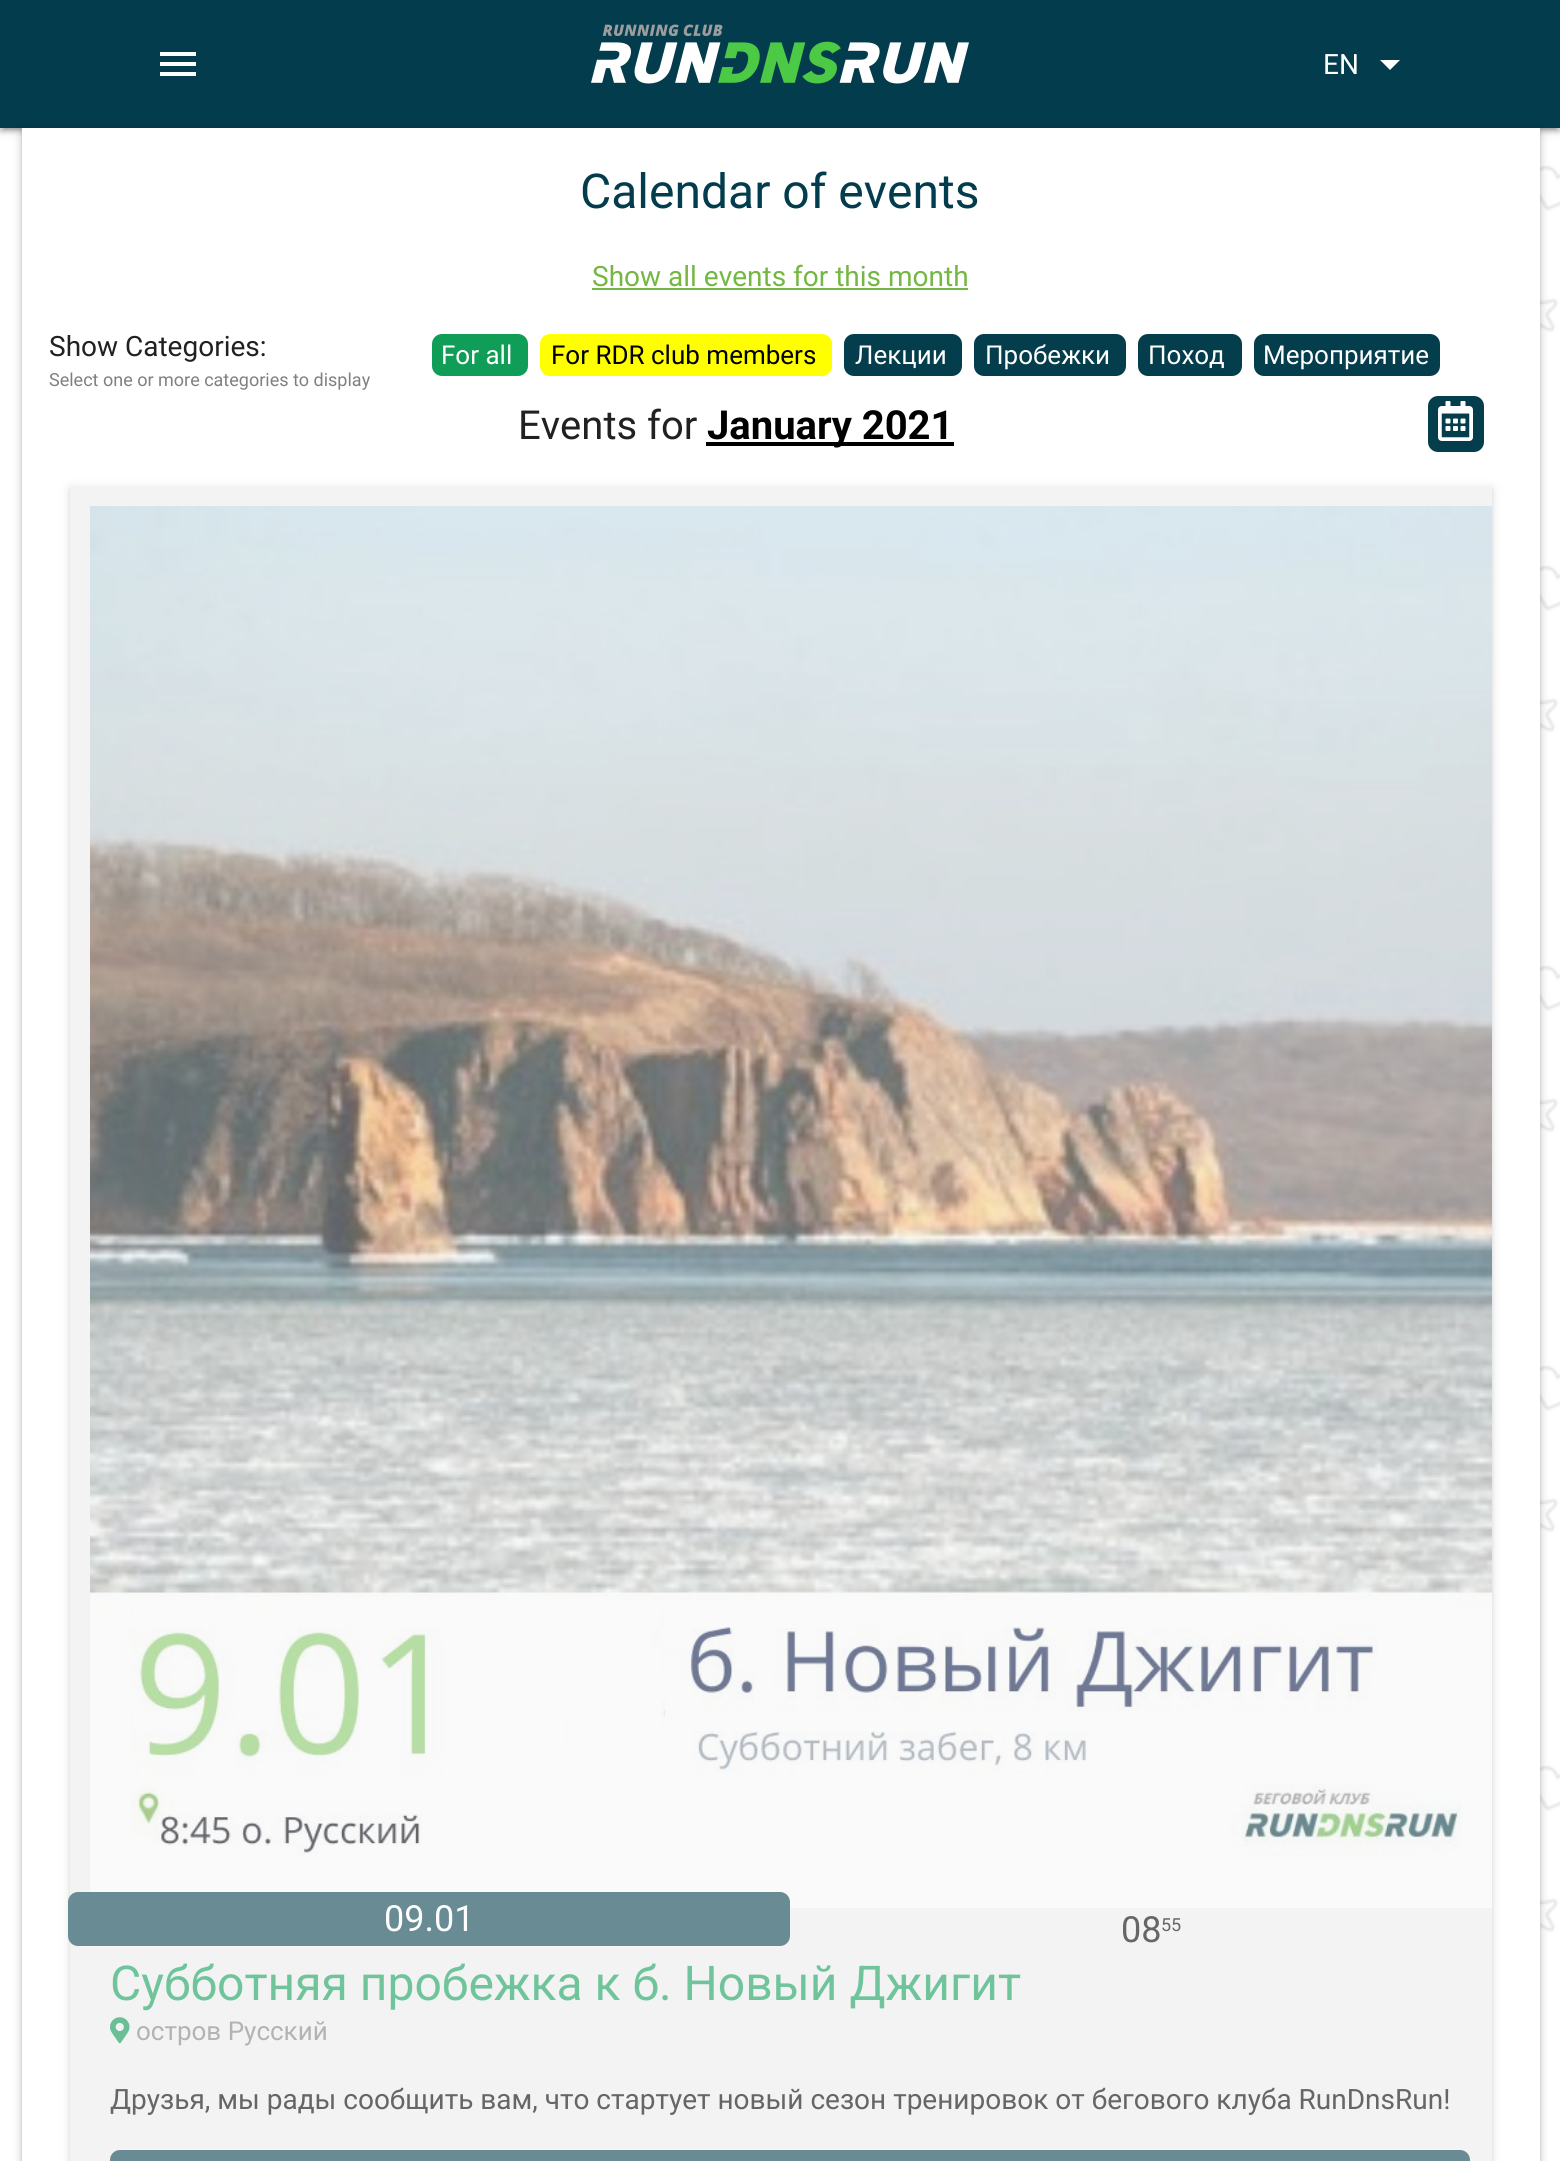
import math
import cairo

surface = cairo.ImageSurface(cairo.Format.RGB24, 1560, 2161)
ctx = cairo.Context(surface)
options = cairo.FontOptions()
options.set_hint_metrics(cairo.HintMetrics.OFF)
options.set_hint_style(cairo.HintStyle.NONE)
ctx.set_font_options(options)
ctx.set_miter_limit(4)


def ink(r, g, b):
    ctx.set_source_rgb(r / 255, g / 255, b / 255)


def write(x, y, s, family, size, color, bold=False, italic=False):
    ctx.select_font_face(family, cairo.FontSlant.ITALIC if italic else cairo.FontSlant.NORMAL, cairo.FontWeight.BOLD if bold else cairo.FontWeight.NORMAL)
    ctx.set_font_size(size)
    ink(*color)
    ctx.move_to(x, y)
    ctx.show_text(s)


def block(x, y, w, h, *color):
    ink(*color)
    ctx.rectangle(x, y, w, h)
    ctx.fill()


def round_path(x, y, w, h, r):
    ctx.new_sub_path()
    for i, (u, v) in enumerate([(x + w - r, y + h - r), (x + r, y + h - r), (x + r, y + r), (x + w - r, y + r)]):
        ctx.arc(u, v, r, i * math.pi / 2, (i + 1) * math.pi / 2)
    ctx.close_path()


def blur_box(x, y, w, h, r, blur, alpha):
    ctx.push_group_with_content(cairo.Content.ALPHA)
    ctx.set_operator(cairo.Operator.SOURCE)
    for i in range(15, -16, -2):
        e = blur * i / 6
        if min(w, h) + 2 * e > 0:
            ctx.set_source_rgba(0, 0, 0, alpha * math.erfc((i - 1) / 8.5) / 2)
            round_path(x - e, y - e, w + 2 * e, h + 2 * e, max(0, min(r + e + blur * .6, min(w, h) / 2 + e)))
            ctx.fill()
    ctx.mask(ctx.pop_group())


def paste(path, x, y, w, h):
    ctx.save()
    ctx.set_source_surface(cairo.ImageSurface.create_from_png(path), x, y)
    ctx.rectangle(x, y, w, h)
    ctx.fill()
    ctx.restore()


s1 = dict(family="Roboto", size=28, color=(255, 255, 255))
s2 = dict(family="Roboto", size=48, color=(3, 60, 76))
s3 = dict(family="Roboto", size=28, color=(117, 183, 67))
s4 = dict(family="Roboto", size=28, color=(33, 33, 33))
s5 = dict(family="Roboto", size=18, color=(128, 128, 128))
s6 = dict(family="Roboto", size=26, color=(255, 255, 255))
s7 = dict(family="Roboto", size=26, color=(0, 0, 0))
s8 = dict(family="Roboto", size=40, color=(33, 33, 33))
s9 = dict(family="Roboto", size=40, color=(0, 0, 0), bold=True)
s10 = dict(family="Roboto", size=36, color=(255, 255, 255))
s11 = dict(family="Roboto", size=36, color=(102, 102, 102))
s12 = dict(family="Roboto", size=18, color=(102, 102, 102))
s13 = dict(family="Roboto", size=48, color=(111, 196, 155))
s14 = dict(family="Roboto", size=26, color=(179, 179, 179))
s15 = dict(family="Roboto", size=28, color=(102, 102, 102))

ink(255, 255, 255)
ctx.paint()
paste("pic1.png", 1540, 165, 20, 1768)
ink(0, 0, 0)
blur_box(0, 2, 1560, 128, 0, 5, 0.2)
blur_box(4, 10, 1552, 120, 0, 1, 0.12)
blur_box(0, 4, 1560, 128, 0, 2, 0.14)
block(0, 0, 1560, 128, 3, 60, 76)
ink(255, 255, 255)
ctx.new_path()
ctx.move_to(160, 52)
ctx.line_to(196, 52)
ctx.line_to(196, 56)
ctx.line_to(160, 56)
ctx.close_path()
ctx.move_to(160, 66)
ctx.line_to(160, 62)
ctx.line_to(196, 62)
ctx.line_to(196, 66)
ctx.close_path()
ctx.move_to(160, 76)
ctx.line_to(160, 72)
ctx.line_to(196, 72)
ctx.line_to(196, 76)
ctx.close_path()
ctx.fill()
paste("pic2.png", 591, 24, 378, 60)
write(1323, 74, "EN", **s1)
ctx.new_path()
ctx.move_to(1380, 60)
ctx.line_to(1400, 60)
ctx.line_to(1390, 70)
ctx.close_path()
ctx.fill()
ink(0, 0, 0)
blur_box(22, 130, 1518, 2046, 0, 5, 0.2)
blur_box(22, 132, 1518, 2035, 0, 2, 0.14)
block(22, 128, 1518, 2033, 255, 255, 255)
write(580, 208, "Calendar of events", **s2)
write(592, 286, "Show all events for this month", **s3)
block(592, 288, 376, 2, 117, 183, 67)
write(49, 356, "Show Categories:", **s4)
write(49, 386, "Select one or more categories to display", **s5)
ink(15, 157, 88)
round_path(432, 334, 96, 42, 10)
ctx.fill()
write(441, 364, "For all", **s6)
ink(255, 255, 0)
round_path(540, 334, 292, 42, 10)
ctx.fill()
write(551, 364, "For RDR club members", **s7)
ink(4, 61, 76)
round_path(844, 334, 118, 42, 10)
ctx.fill()
write(855, 364, "Лекции", **s6)
ink(4, 61, 76)
round_path(974, 334, 152, 42, 10)
ctx.fill()
write(985, 364, "Пробежки", **s6)
ink(4, 61, 76)
round_path(1138, 334, 104, 42, 10)
ctx.fill()
write(1148, 364, "Поход", **s6)
ink(4, 61, 76)
round_path(1254, 334, 186, 42, 10)
ctx.fill()
write(1263, 364, "Мероприятие", **s6)
write(518, 439, "Events for", **s8)
block(706, 442, 248, 4, 0, 0, 0)
write(707, 439, "January 2021", **s9)
ink(4, 61, 76)
round_path(1428, 396, 56, 56, 10)
ctx.fill()
paste("pic3.png", 1438, 401, 35, 40)
ink(102, 102, 102)
blur_box(70, 488, 1422, 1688, 0, 5, 0.2)
blur_box(70, 490, 1422, 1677, 0, 2, 0.14)
block(70, 486, 1422, 1675, 243, 243, 243)
paste("pic4.png", 90, 506, 1402, 1402)
ink(104, 139, 148)
round_path(68, 1892, 722, 54, 10)
ctx.fill()
write(384, 1931, "09.01", **s10)
write(1121, 1942, "08", **s11)
write(1161, 1931, "55", **s12)
write(110, 2000, "Субботняя пробежка к б. Новый Джигит", **s13)
paste("pic5.png", 110, 2017, 20, 27)
write(136, 2040, "остров Русский", **s14)
write(110, 2109, "Друзья, мы рады сообщить вам, что стартует новый сезон тренировок от бегового клуба RunDnsRun!", **s15)
ink(104, 139, 148)
round_path(110, 2150, 1360, 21, 10)
ctx.fill()
surface.write_to_png("screenshot.png")
